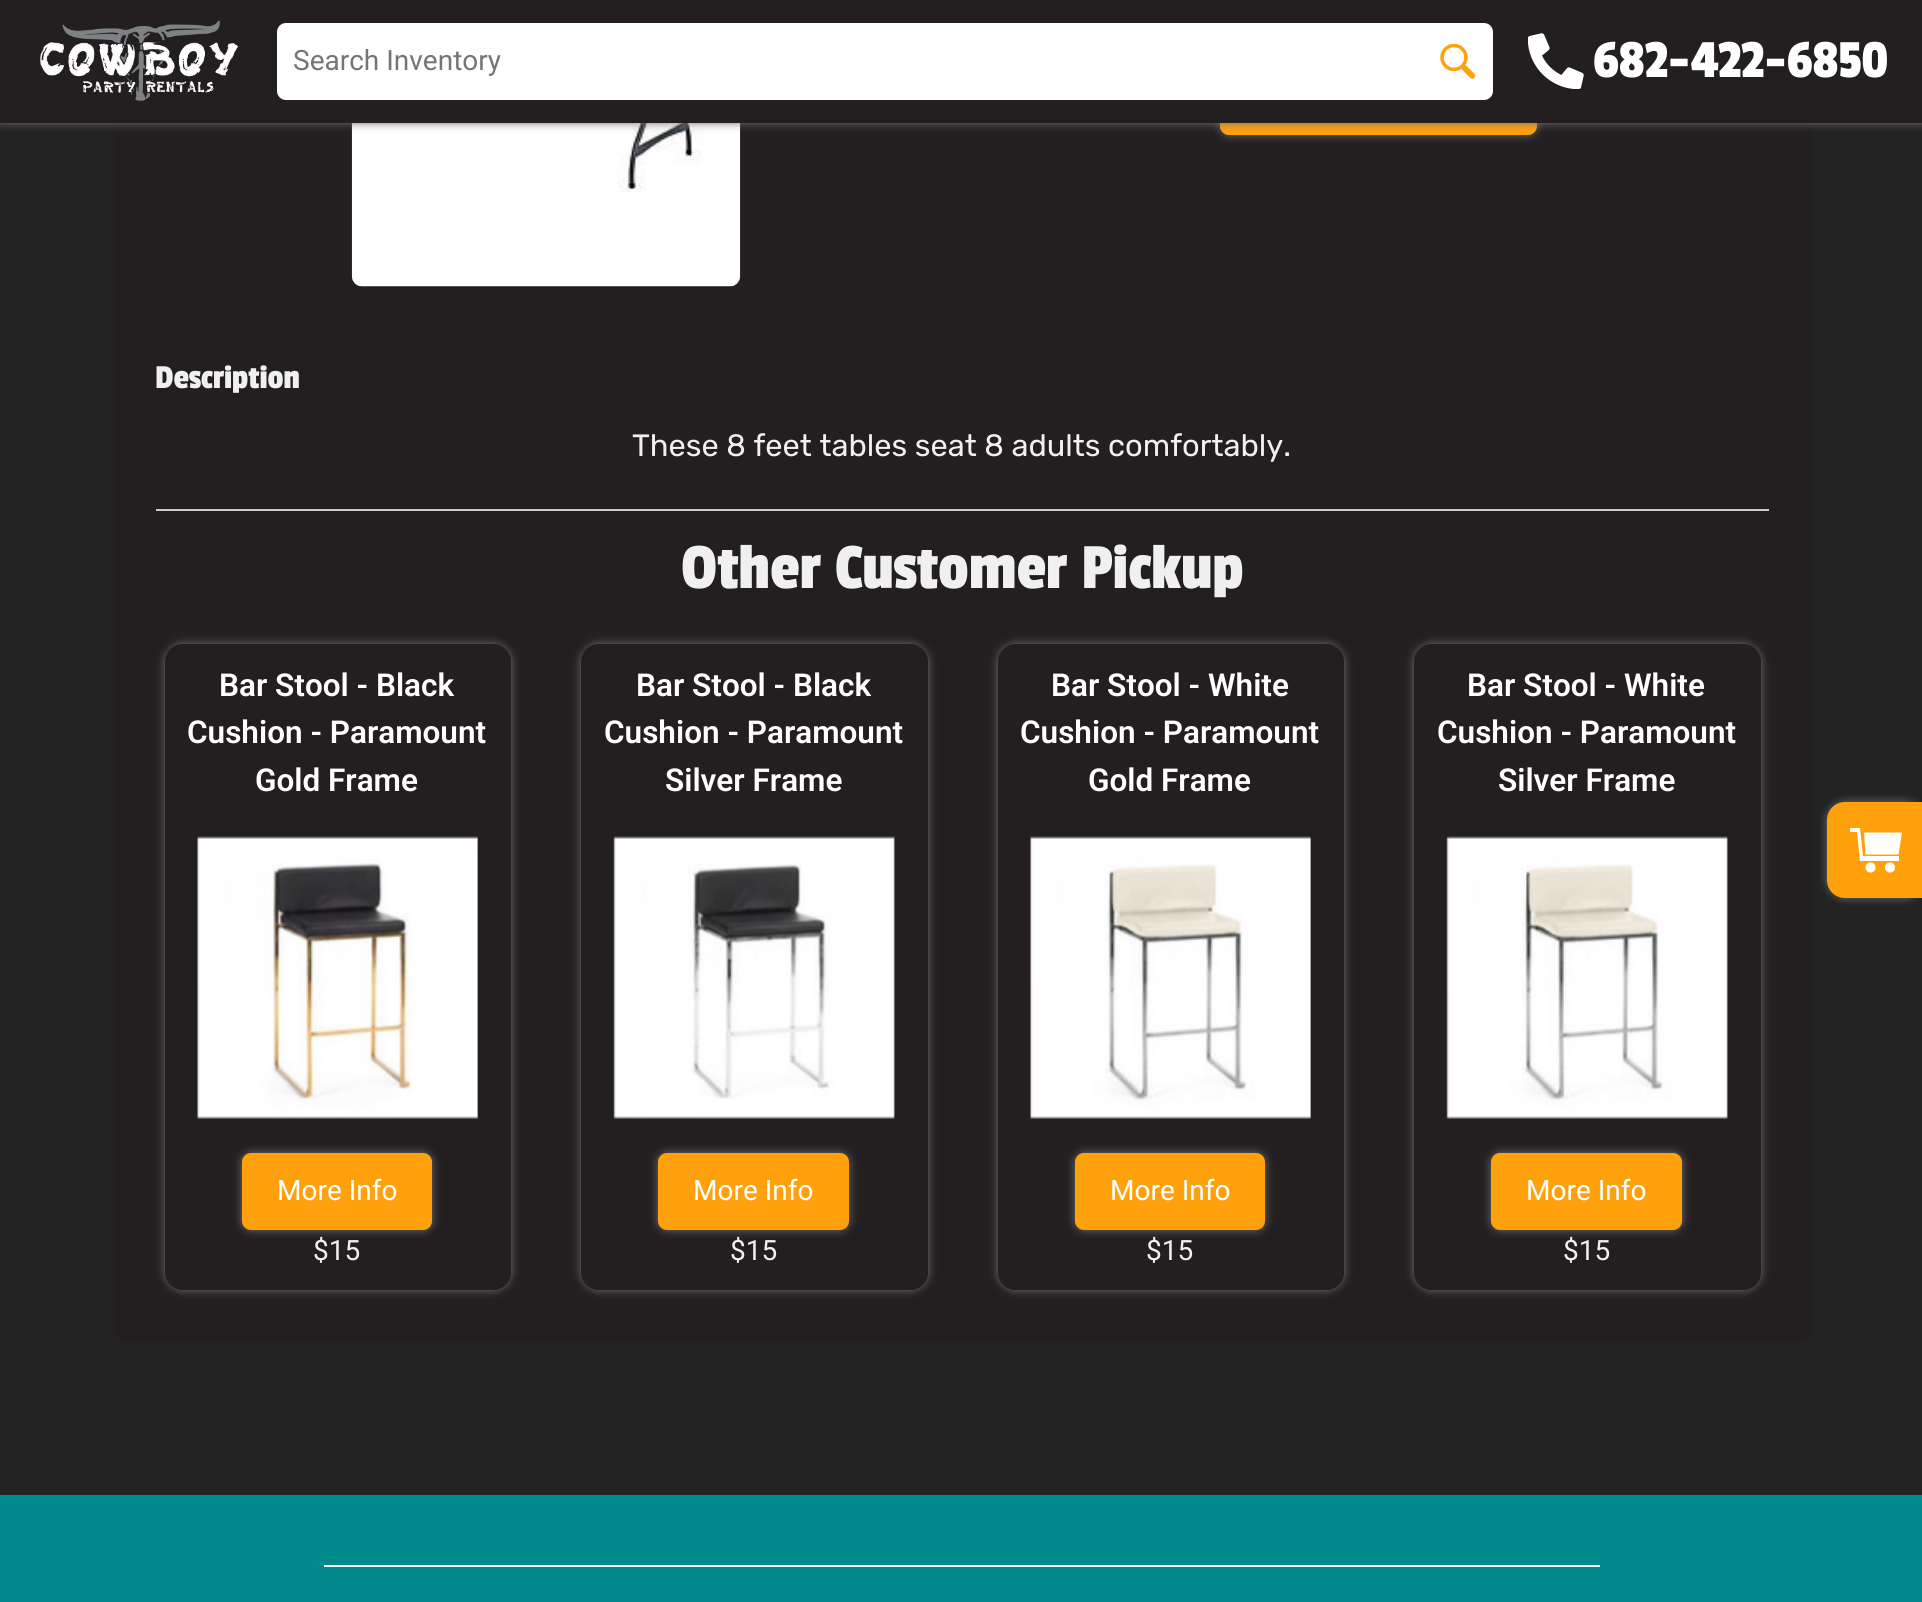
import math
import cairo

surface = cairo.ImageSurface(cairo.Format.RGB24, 1922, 1602)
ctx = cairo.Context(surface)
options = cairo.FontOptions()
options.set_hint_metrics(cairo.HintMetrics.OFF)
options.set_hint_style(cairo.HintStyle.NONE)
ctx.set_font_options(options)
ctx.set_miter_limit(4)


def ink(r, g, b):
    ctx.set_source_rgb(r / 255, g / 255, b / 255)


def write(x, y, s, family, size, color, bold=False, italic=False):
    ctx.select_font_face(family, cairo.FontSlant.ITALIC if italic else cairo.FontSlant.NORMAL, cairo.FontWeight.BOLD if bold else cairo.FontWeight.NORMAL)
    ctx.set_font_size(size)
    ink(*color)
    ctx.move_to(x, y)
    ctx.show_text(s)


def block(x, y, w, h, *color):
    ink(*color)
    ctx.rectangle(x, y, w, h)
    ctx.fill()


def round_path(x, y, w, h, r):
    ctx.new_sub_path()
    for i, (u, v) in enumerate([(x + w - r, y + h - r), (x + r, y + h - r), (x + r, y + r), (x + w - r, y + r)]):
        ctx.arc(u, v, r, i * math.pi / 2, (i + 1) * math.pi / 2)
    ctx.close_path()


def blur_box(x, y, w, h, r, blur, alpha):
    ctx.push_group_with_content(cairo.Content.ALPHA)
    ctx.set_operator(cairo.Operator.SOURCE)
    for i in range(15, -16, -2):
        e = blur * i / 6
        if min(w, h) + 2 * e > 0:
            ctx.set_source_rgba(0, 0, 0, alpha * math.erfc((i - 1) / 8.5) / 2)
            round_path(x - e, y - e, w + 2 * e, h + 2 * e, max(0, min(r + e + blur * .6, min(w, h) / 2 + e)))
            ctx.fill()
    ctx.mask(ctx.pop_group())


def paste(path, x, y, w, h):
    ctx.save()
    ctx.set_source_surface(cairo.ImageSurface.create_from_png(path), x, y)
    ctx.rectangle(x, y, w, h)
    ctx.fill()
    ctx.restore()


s1 = dict(family="Roboto", size=28, color=(117, 117, 117))
s2 = dict(family="Passion One", size=56, color=(255, 255, 255))
s3 = dict(family="Passion One", size=35, color=(240, 240, 240))
s4 = dict(family="Rubik", size=30.8, color=(240, 240, 240))
s5 = dict(family="Passion One", size=67.25, color=(240, 240, 240))
s6 = dict(family="Roboto SemiBold", size=31.5, color=(255, 255, 255))
s7 = dict(family="Roboto", size=28, color=(255, 255, 255))
s8 = dict(family="Roboto", size=28, color=(240, 240, 240))

ink(34, 34, 34)
ctx.paint()
ink(35, 31, 32)
round_path(114, -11, 1697, 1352, 11)
ctx.fill()
ink(112, 112, 112)
blur_box(1220, 58, 317, 77, 9, 4.5, 1)
ink(255, 161, 12)
round_path(1220, 58, 317, 77, 9)
ctx.fill()
paste("pic4.png", 351, 123, 390, 164)
ink(112, 112, 112)
blur_box(0, 0, 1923, 123, 0, 4.5, 1)
block(0, 0, 1922, 123, 35, 31, 32)
paste("pic1.png", 40, 20, 199, 81)
ink(255, 255, 255)
round_path(277, 23, 1216, 77, 9)
ctx.fill()
write(293, 70, "Search Inventory", **s1)
paste("pic2.png", 1440, 44, 35, 35)
paste("pic3.png", 1528, 33, 56, 56)
write(1593, 77, "682-422-6850", **s2)
write(155, 388, "Description", **s3)
write(632, 456, "These 8 feet tables seat 8 adults comfortably.", **s4)
block(156, 509, 1613, 2, 204, 204, 204)
write(681, 588, "Other Customer Pickup", **s5)
ctx.save()
ctx.set_fill_rule(cairo.FillRule.EVEN_ODD)
ctx.new_path()
ctx.move_to(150, 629)
ctx.line_to(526, 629)
ctx.line_to(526, 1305)
ctx.line_to(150, 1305)
ctx.close_path()
ctx.move_to(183, 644)
ctx.line_to(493, 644)
ctx.curve_to(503, 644, 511, 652, 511, 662)
ctx.line_to(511, 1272)
ctx.curve_to(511, 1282, 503, 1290, 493, 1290)
ctx.line_to(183, 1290)
ctx.curve_to(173, 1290, 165, 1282, 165, 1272)
ctx.line_to(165, 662)
ctx.curve_to(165, 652, 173, 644, 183, 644)
ctx.close_path()
ctx.clip()
ink(112, 112, 112)
blur_box(165, 644, 346, 646, 18, 4.5, 1)
ctx.restore()
write(219, 696, "Bar Stool - Black", **s6)
write(187, 743, "Cushion - Paramount", **s6)
write(255, 791, "Gold Frame", **s6)
paste("pic5.png", 197, 836, 281, 283)
ink(112, 112, 112)
blur_box(242, 1153, 190, 77, 9, 4.5, 1)
ink(255, 161, 12)
round_path(242, 1153, 190, 77, 9)
ctx.fill()
write(277, 1200, "More Info", **s7)
write(313, 1260, "$15", **s8)
ctx.save()
ctx.set_fill_rule(cairo.FillRule.EVEN_ODD)
ctx.new_path()
ctx.move_to(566, 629)
ctx.line_to(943, 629)
ctx.line_to(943, 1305)
ctx.line_to(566, 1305)
ctx.close_path()
ctx.move_to(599, 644)
ctx.line_to(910, 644)
ctx.curve_to(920, 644, 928, 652, 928, 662)
ctx.line_to(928, 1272)
ctx.curve_to(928, 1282, 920, 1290, 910, 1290)
ctx.line_to(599, 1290)
ctx.curve_to(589, 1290, 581, 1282, 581, 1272)
ctx.line_to(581, 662)
ctx.curve_to(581, 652, 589, 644, 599, 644)
ctx.close_path()
ctx.clip()
ink(112, 112, 112)
blur_box(581, 644, 347, 646, 18, 4.5, 1)
ctx.restore()
write(636, 696, "Bar Stool - Black", **s6)
write(604, 743, "Cushion - Paramount", **s6)
write(665, 791, "Silver Frame", **s6)
paste("pic6.png", 613, 836, 282, 283)
ink(112, 112, 112)
blur_box(658, 1153, 191, 77, 9, 4.5, 1)
ink(255, 161, 12)
round_path(658, 1153, 191, 77, 9)
ctx.fill()
write(693, 1200, "More Info", **s7)
write(730, 1260, "$15", **s8)
ctx.save()
ctx.set_fill_rule(cairo.FillRule.EVEN_ODD)
ctx.new_path()
ctx.move_to(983, 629)
ctx.line_to(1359, 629)
ctx.line_to(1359, 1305)
ctx.line_to(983, 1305)
ctx.close_path()
ctx.move_to(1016, 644)
ctx.line_to(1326, 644)
ctx.curve_to(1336, 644, 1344, 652, 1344, 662)
ctx.line_to(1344, 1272)
ctx.curve_to(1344, 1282, 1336, 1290, 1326, 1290)
ctx.line_to(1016, 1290)
ctx.curve_to(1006, 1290, 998, 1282, 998, 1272)
ctx.line_to(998, 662)
ctx.curve_to(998, 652, 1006, 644, 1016, 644)
ctx.close_path()
ctx.clip()
ink(112, 112, 112)
blur_box(998, 644, 346, 646, 18, 4.5, 1)
ctx.restore()
write(1051, 696, "Bar Stool - White", **s6)
write(1020, 743, "Cushion - Paramount", **s6)
write(1088, 791, "Gold Frame", **s6)
paste("pic7.png", 1030, 836, 281, 283)
ink(112, 112, 112)
blur_box(1075, 1153, 190, 77, 9, 4.5, 1)
ink(255, 161, 12)
round_path(1075, 1153, 190, 77, 9)
ctx.fill()
write(1110, 1200, "More Info", **s7)
write(1146, 1260, "$15", **s8)
ctx.save()
ctx.set_fill_rule(cairo.FillRule.EVEN_ODD)
ctx.new_path()
ctx.move_to(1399, 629)
ctx.line_to(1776, 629)
ctx.line_to(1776, 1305)
ctx.line_to(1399, 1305)
ctx.close_path()
ctx.move_to(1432, 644)
ctx.line_to(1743, 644)
ctx.curve_to(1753, 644, 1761, 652, 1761, 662)
ctx.line_to(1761, 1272)
ctx.curve_to(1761, 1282, 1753, 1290, 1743, 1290)
ctx.line_to(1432, 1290)
ctx.curve_to(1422, 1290, 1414, 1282, 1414, 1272)
ctx.line_to(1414, 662)
ctx.curve_to(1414, 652, 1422, 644, 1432, 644)
ctx.close_path()
ctx.clip()
ink(112, 112, 112)
blur_box(1414, 644, 347, 646, 18, 4.5, 1)
ctx.restore()
write(1467, 696, "Bar Stool - White", **s6)
write(1437, 743, "Cushion - Paramount", **s6)
write(1498, 791, "Silver Frame", **s6)
paste("pic8.png", 1446, 836, 282, 283)
ink(112, 112, 112)
blur_box(1491, 1153, 191, 77, 9, 4.5, 1)
ink(255, 161, 12)
round_path(1491, 1153, 191, 77, 9)
ctx.fill()
write(1526, 1200, "More Info", **s7)
write(1563, 1260, "$15", **s8)
ink(112, 112, 112)
blur_box(1827, 802, 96, 96, 18, 4.5, 1)
ink(255, 161, 12)
ctx.new_path()
ctx.move_to(1845, 802)
ctx.line_to(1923, 802)
ctx.line_to(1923, 898)
ctx.line_to(1845, 898)
ctx.curve_to(1835, 898, 1827, 890, 1827, 880)
ctx.line_to(1827, 820)
ctx.curve_to(1827, 810, 1835, 802, 1845, 802)
ctx.close_path()
ctx.fill()
ink(255, 255, 255)
ctx.new_path()
ctx.move_to(1864, 832.5)
ctx.line_to(1865.5, 854.5)
ctx.line_to(1898.5, 854.5)
ctx.line_to(1902, 832.5)
ctx.close_path()
ctx.fill()
ctx.new_path()
ctx.move_to(1860, 828)
ctx.line_to(1850, 828)
ctx.line_to(1850, 832)
ctx.line_to(1857, 832)
ctx.line_to(1860, 861)
ctx.line_to(1899, 861)
ctx.line_to(1899, 856)
ctx.line_to(1863, 856)
ctx.close_path()
ctx.fill()
ctx.arc(1870.5, 867.5, 5, 0, 2 * math.pi)
ctx.fill()
ctx.arc(1890, 867.5, 5, 0, 2 * math.pi)
ctx.fill()
block(0, 1495, 1922, 107, 0, 138, 139)
block(324, 1565, 1276, 2, 255, 255, 255)
surface.write_to_png("screenshot.png")
